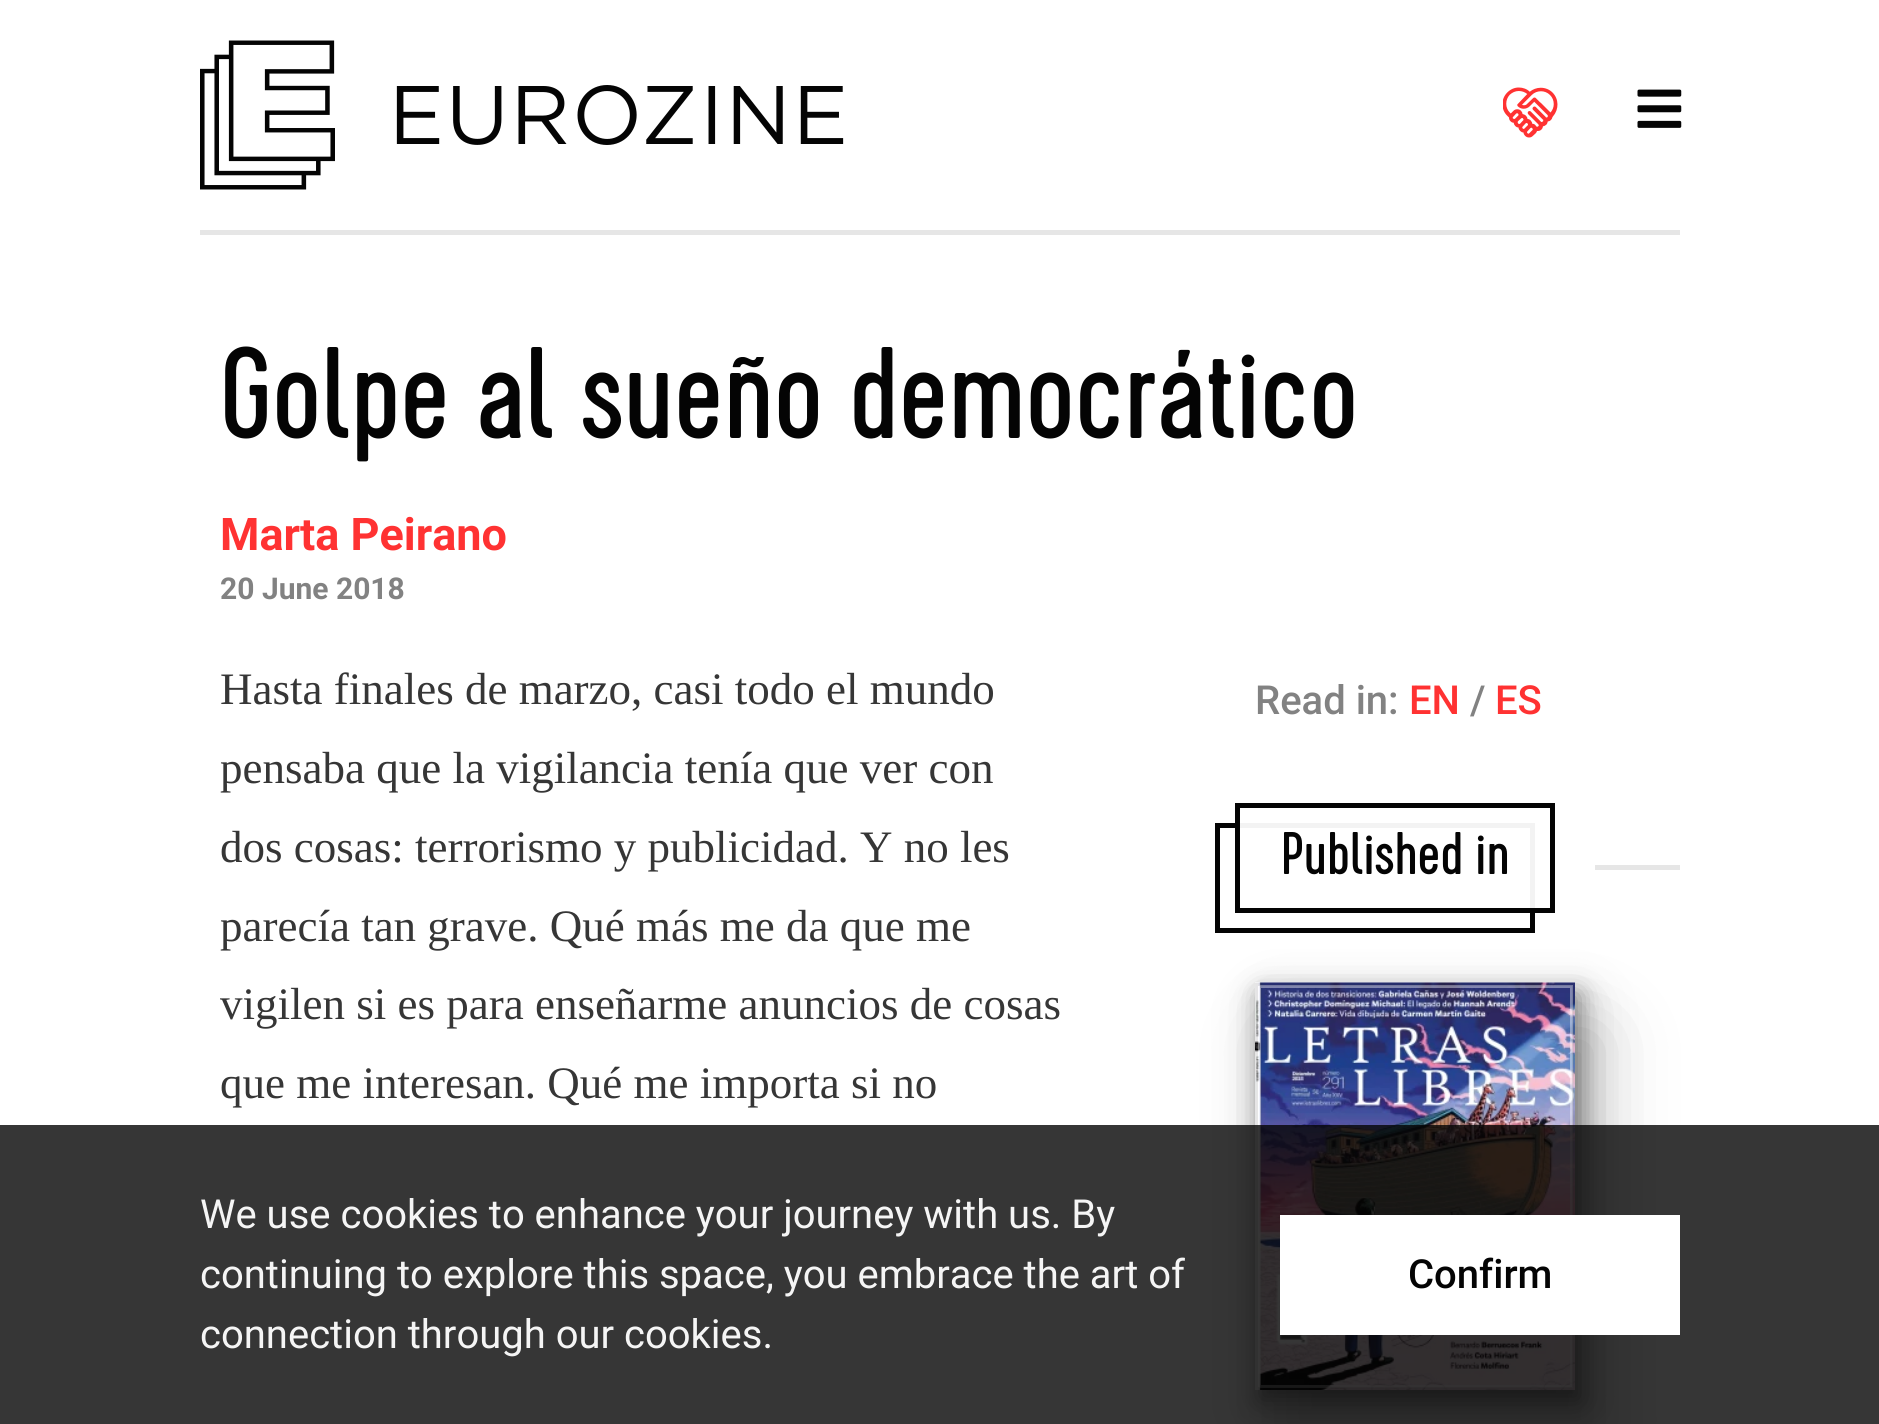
import math
import cairo

surface = cairo.ImageSurface(cairo.Format.RGB24, 1879, 1424)
ctx = cairo.Context(surface)
options = cairo.FontOptions()
options.set_hint_metrics(cairo.HintMetrics.OFF)
options.set_hint_style(cairo.HintStyle.NONE)
ctx.set_font_options(options)
ctx.set_miter_limit(4)


def ink(r, g, b):
    ctx.set_source_rgb(r / 255, g / 255, b / 255)


def write(x, y, s, family, size, color, bold=False, italic=False):
    ctx.select_font_face(family, cairo.FontSlant.ITALIC if italic else cairo.FontSlant.NORMAL, cairo.FontWeight.BOLD if bold else cairo.FontWeight.NORMAL)
    ctx.set_font_size(size)
    ink(*color)
    ctx.move_to(x, y)
    ctx.show_text(s)


def block(x, y, w, h, *color):
    ink(*color)
    ctx.rectangle(x, y, w, h)
    ctx.fill()


def round_path(x, y, w, h, r):
    ctx.new_sub_path()
    for i, (u, v) in enumerate([(x + w - r, y + h - r), (x + r, y + h - r), (x + r, y + r), (x + w - r, y + r)]):
        ctx.arc(u, v, r, i * math.pi / 2, (i + 1) * math.pi / 2)
    ctx.close_path()


def blur_box(x, y, w, h, r, blur, alpha):
    ctx.push_group_with_content(cairo.Content.ALPHA)
    ctx.set_operator(cairo.Operator.SOURCE)
    for i in range(15, -16, -2):
        e = blur * i / 6
        if min(w, h) + 2 * e > 0:
            ctx.set_source_rgba(0, 0, 0, alpha * math.erfc((i - 1) / 8.5) / 2)
            round_path(x - e, y - e, w + 2 * e, h + 2 * e, max(0, min(r + e + blur * .6, min(w, h) / 2 + e)))
            ctx.fill()
    ctx.mask(ctx.pop_group())


def paste(path, x, y, w, h):
    ctx.save()
    ctx.set_source_surface(cairo.ImageSurface.create_from_png(path), x, y)
    ctx.rectangle(x, y, w, h)
    ctx.fill()
    ctx.restore()


s1 = dict(family="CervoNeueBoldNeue", size=130, color=(4, 4, 4))
s2 = dict(family="Roboto", size=45, color=(255, 50, 50), bold=True)
s3 = dict(family="Roboto", size=30, color=(130, 130, 130), bold=True)
s4 = dict(family="Liberation Serif", size=45, color=(54, 54, 54))
s5 = dict(family="Roboto Medium", size=40, color=(130, 130, 130))
s6 = dict(family="Roboto Medium", size=40, color=(255, 50, 50))
s7 = dict(family="CervoNeueBoldNeue", size=60, color=(4, 4, 4))
s8 = dict(family="Roboto", size=40, color=(245, 245, 245))
s9 = dict(family="Roboto Medium", size=40, color=(4, 4, 4))

ink(255, 255, 255)
ctx.paint()
paste("pic1.png", 200, 40, 135, 150)
paste("pic2.png", 396, 85, 448, 60)
paste("pic3.png", 1503, 87, 55, 51)
paste("pic4.png", 1637, 89, 45, 39)
block(200, 230, 1480, 5, 230, 230, 230)
write(220, 438, "Golpe al sueño democrático", **s1)
write(220, 550, "Marta Peirano", **s2)
write(220, 599, "20 June 2018", **s3)
write(220, 704, "Hasta finales de marzo, casi todo el mundo", **s4)
write(220, 783, "pensaba que la vigilancia tenía que ver con", **s4)
write(220, 862, "dos cosas: terrorismo y publicidad. Y no les", **s4)
write(220, 941, "parecía tan grave. Qué más me da que me", **s4)
write(220, 1019, "vigilen si es para enseñarme anuncios de cosas", **s4)
write(220, 1098, "que me interesan. Qué me importa si no", **s4)
write(1255, 714, "Read in:", **s5)
write(1409, 714, "EN", **s6)
write(1470, 714, "/", **s5)
write(1495, 714, "ES", **s6)
ink(4, 4, 4)
blur_box(1265, 1003, 320, 407, 0, 25, 0.2)
blur_box(1280, 1033, 320, 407, 0, 37.5, 0.2)
ctx.rectangle(1217.5, 825.5, 315, 105)
ink(4, 4, 4)
ctx.set_line_width(5)
ctx.stroke()
ctx.set_source_rgba(1, 1, 1, 0.95)
ctx.rectangle(1240, 823, 295, 85)
ctx.fill()
ctx.rectangle(1237.5, 805.5, 315, 105)
ink(4, 4, 4)
ctx.stroke()
write(1281, 874, "Published in", **s7)
block(1595, 865, 85, 5, 230, 230, 230)
ink(4, 4, 4)
blur_box(1260, 993, 320, 407, 0, 12.5, 0.4)
paste("pic5.png", 1255, 982, 320, 408)
ctx.rectangle(1259.5, 986.5, 312, 400)
ctx.set_source_rgba(1, 1, 1, 0.4)
ctx.set_line_width(3)
ctx.stroke()
ctx.rectangle(1256.5, 984.5, 317, 404)
ctx.set_source_rgba(0.016, 0.016, 0.016, 0.1)
ctx.stroke()
ctx.set_source_rgba(0.016, 0.016, 0.016, 0.8)
ctx.rectangle(0, 1125, 1879, 299)
ctx.fill()
write(200, 1228, "We use cookies to enhance your journey with us. By", **s8)
write(200, 1288, "continuing to explore this space, you embrace the art of", **s8)
write(200, 1348, "connection through our cookies.", **s8)
block(1280, 1215, 400, 120, 255, 255, 255)
write(1408, 1288, "Confirm", **s9)
surface.write_to_png("screenshot.png")
